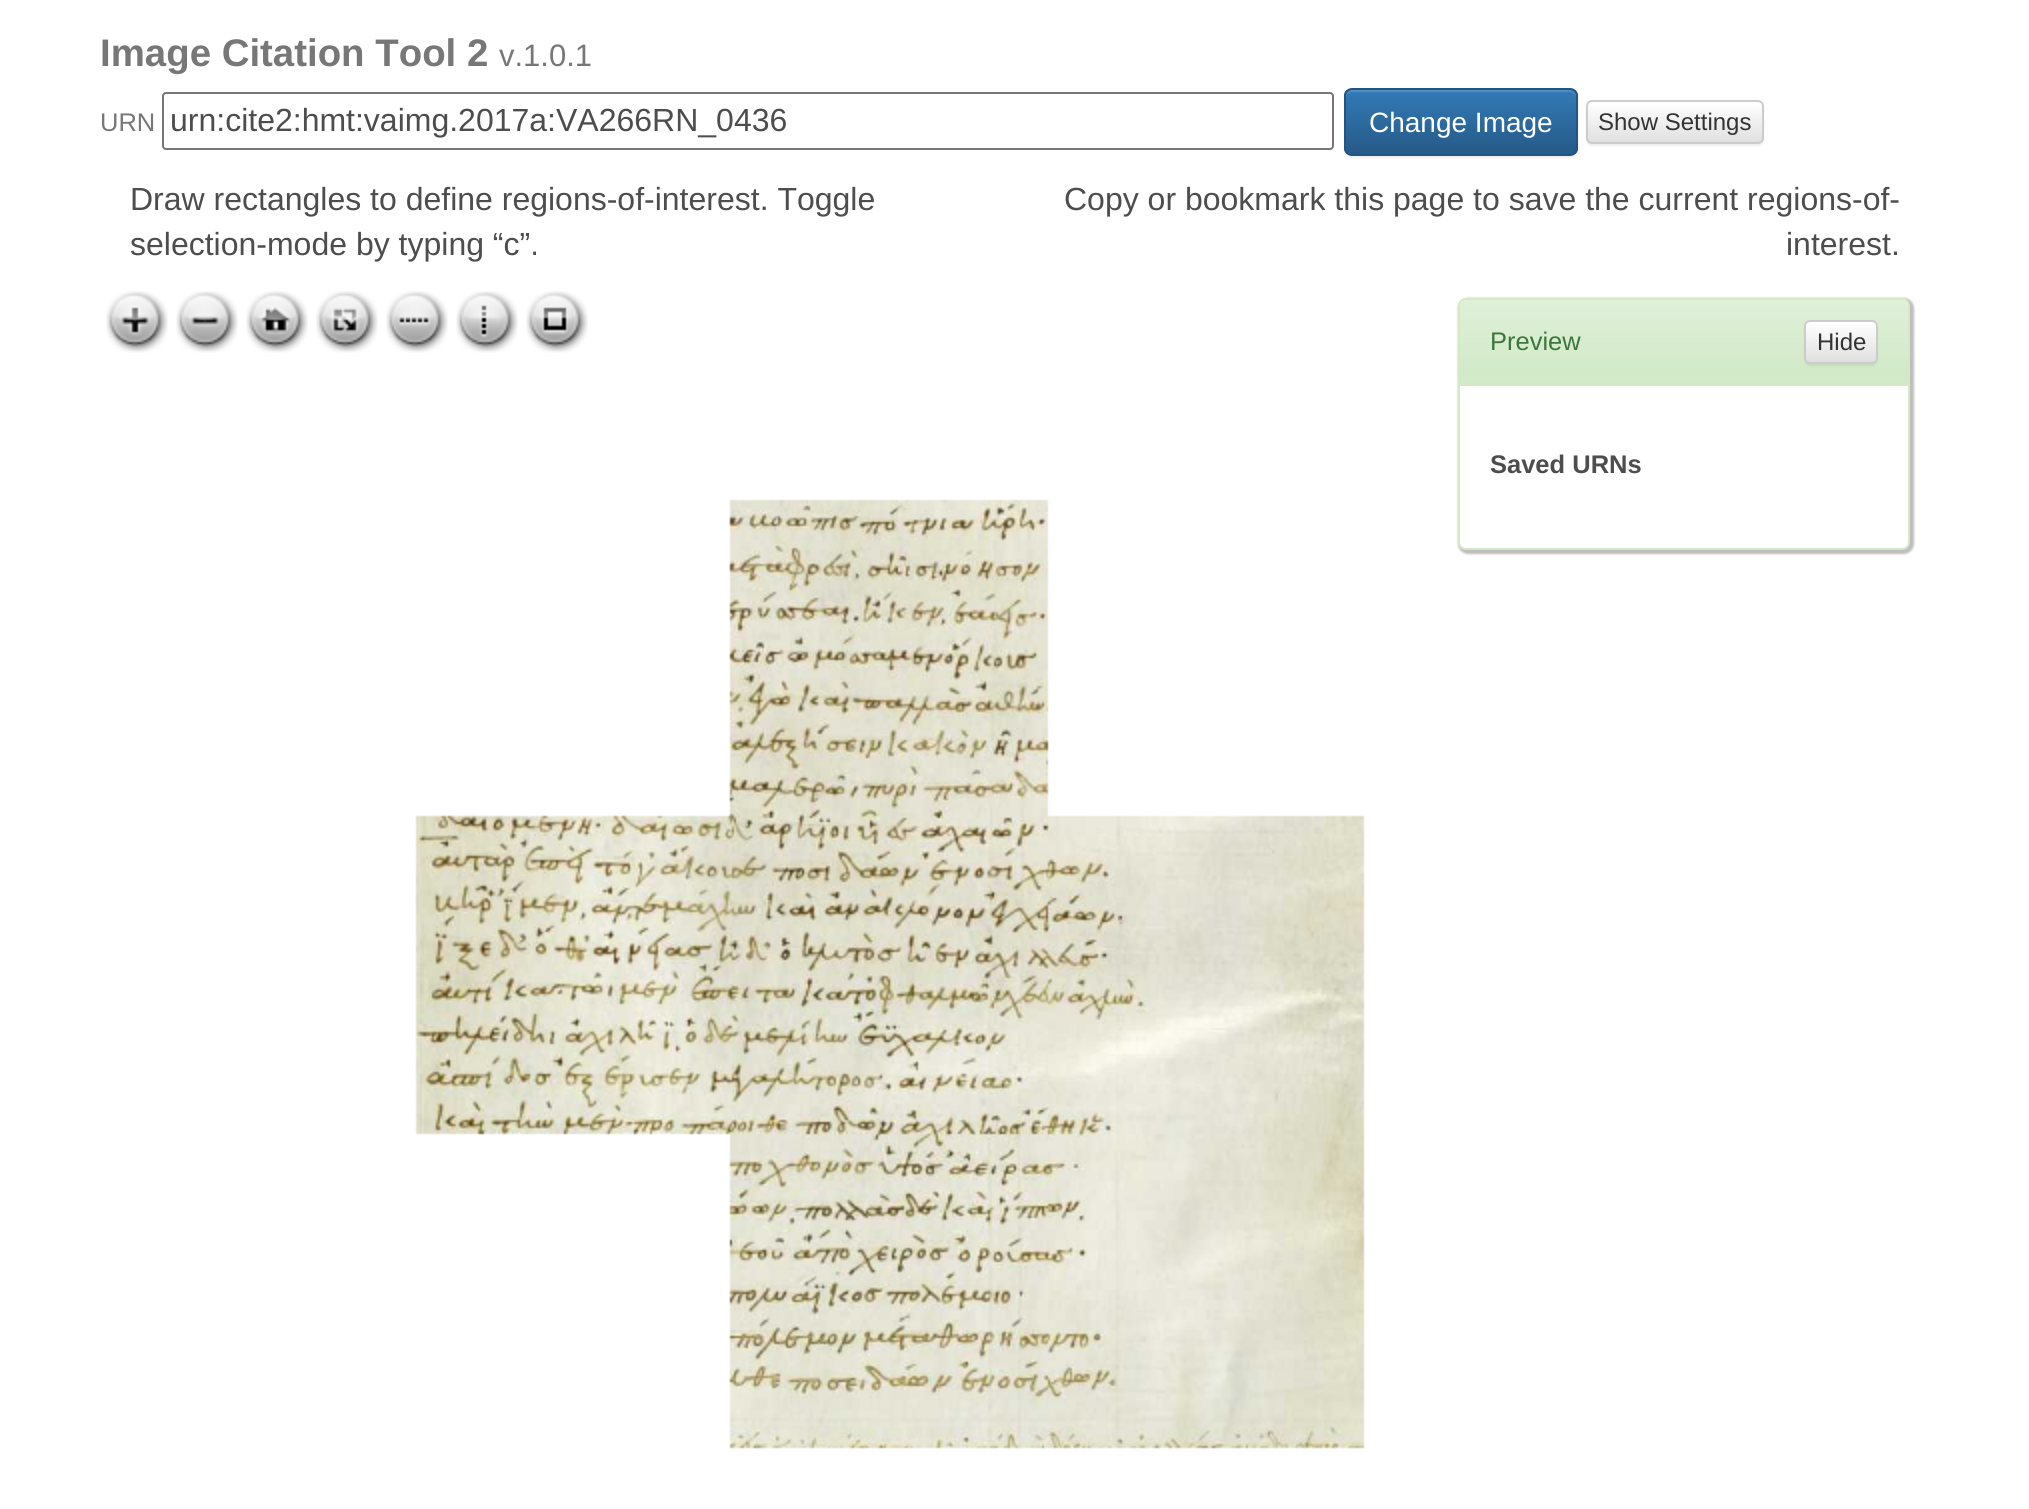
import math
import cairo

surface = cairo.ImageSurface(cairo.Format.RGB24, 2029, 1509)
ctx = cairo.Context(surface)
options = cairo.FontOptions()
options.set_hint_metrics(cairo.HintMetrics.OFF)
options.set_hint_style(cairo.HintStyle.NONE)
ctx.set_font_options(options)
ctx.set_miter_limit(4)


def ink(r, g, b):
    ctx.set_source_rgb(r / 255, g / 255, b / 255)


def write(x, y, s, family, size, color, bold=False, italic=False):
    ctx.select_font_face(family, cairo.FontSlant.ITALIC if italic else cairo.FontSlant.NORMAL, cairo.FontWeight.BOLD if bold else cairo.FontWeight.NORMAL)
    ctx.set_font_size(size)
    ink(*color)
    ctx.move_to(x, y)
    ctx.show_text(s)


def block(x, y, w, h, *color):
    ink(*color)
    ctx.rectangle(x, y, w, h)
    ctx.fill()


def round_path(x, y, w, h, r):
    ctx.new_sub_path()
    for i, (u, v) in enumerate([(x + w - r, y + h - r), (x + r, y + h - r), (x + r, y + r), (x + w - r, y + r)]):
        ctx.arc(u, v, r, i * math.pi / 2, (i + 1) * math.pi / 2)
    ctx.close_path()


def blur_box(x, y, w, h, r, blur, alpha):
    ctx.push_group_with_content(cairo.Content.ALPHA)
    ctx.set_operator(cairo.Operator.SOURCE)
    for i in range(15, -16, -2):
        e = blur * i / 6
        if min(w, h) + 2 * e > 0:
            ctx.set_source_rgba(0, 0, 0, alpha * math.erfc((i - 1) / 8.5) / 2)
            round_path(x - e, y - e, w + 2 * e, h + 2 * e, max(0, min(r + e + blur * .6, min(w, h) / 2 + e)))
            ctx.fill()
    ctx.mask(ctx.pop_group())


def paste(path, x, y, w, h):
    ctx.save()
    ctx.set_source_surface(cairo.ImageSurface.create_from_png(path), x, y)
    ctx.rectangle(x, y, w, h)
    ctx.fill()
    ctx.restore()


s1 = dict(family="Liberation Sans", size=38.4, color=(119, 119, 119), bold=True)
s2 = dict(family="Liberation Sans", size=31, color=(119, 119, 119))
s3 = dict(family="Liberation Sans", size=25.5, color=(119, 119, 119))
s4 = dict(family="Liberation Sans", size=32, color=(77, 77, 77))
s5 = dict(family="Liberation Sans", size=28, color=(255, 255, 255))
s6 = dict(family="Liberation Sans", size=24, color=(51, 51, 51))
s7 = dict(family="Liberation Sans", size=25.5, color=(60, 118, 61))
s8 = dict(family="Liberation Sans", size=25.5, color=(77, 77, 77), bold=True)

ink(255, 255, 255)
ctx.paint()
write(100, 66, "Image Citation Tool 2", **s1)
write(499, 66, "v.1.0.1", **s2)
write(100, 131, "URN", **s3)
round_path(163, 93, 1170, 56, 3)
ink(118, 118, 118)
ctx.stroke()
write(170, 131, "urn:cite2:hmt:vaimg.2017a:VA266RN_0436", **s4)
ink(0, 0, 0)
blur_box(1344, 90, 234, 68, 8, 1, 0.07)
ctx.save()
round_path(1344, 88, 234, 68, 8)
ctx.clip()
gradient = cairo.LinearGradient(1461, 90, 1461, 154)
gradient.add_color_stop_rgba(0, 0.2, 0.478, 0.718, 1)
gradient.add_color_stop_rgba(1, 0.149, 0.353, 0.533, 1)
ctx.set_source(gradient)
ctx.rectangle(1344, 90, 234, 64)
ctx.fill()
ctx.restore()
ctx.set_source_rgba(1, 1, 1, 0.15)
ctx.new_path()
ctx.move_to(1352, 92)
ctx.line_to(1570, 92)
ctx.curve_to(1573, 92, 1576, 95, 1576, 98)
ctx.line_to(1576, 96)
ctx.curve_to(1576, 93, 1573, 90, 1570, 90)
ctx.line_to(1352, 90)
ctx.curve_to(1349, 90, 1346, 93, 1346, 96)
ctx.line_to(1346, 98)
ctx.curve_to(1346, 95, 1349, 92, 1352, 92)
ctx.close_path()
ctx.fill()
round_path(1345, 89, 232, 66, 7)
ink(36, 85, 128)
ctx.stroke()
write(1369, 132, "Change Image", **s5)
ink(0, 0, 0)
blur_box(1586, 102, 178, 44, 6, 1, 0.07)
ctx.save()
round_path(1586, 100, 178, 44, 6)
ctx.clip()
gradient = cairo.LinearGradient(1675, 102, 1675, 142)
gradient.add_color_stop_rgba(0, 1, 1, 1, 1)
gradient.add_color_stop_rgba(1, 0.878, 0.878, 0.878, 1)
ctx.set_source(gradient)
ctx.rectangle(1586, 102, 178, 40)
ctx.fill()
ctx.restore()
round_path(1587, 101, 176, 42, 5)
ink(204, 204, 204)
ctx.stroke()
write(1598, 130, "Show Settings", **s6)
write(130, 210, "Draw rectangles to define regions-of-interest. Toggle", **s4)
write(130, 255, "selection-mode by typing “c”.", **s4)
write(1064, 210, "Copy or bookmark this page to save the current regions-of-", **s4)
write(1786, 255, "interest.", **s4)
paste("pic1.png", 106, 291, 62, 62)
paste("pic2.png", 107, 292, 60, 59)
paste("pic3.png", 176, 291, 62, 62)
paste("pic4.png", 177, 292, 60, 59)
paste("pic5.png", 246, 291, 62, 62)
paste("pic6.png", 247, 292, 60, 59)
paste("pic7.png", 316, 291, 62, 62)
paste("pic8.png", 317, 292, 60, 59)
paste("pic9.png", 386, 291, 62, 62)
paste("pic10.png", 387, 292, 60, 59)
paste("pic11.png", 456, 291, 62, 62)
paste("pic12.png", 457, 292, 60, 59)
paste("pic13.png", 526, 291, 62, 62)
paste("pic14.png", 527, 292, 60, 59)
paste("pic15.png", 415, 499, 950, 950)
ink(125, 125, 125)
blur_box(1458, 298, 456, 256, 10, 1, 0.5)
ink(255, 255, 255)
round_path(1459, 299, 450, 250, 7)
ctx.fill_preserve()
ink(214, 233, 198)
ctx.stroke()
gradient = cairo.LinearGradient(1684, 300, 1684, 384)
gradient.add_color_stop_rgba(0, 0.875, 0.941, 0.847, 1)
gradient.add_color_stop_rgba(1, 0.816, 0.914, 0.776, 1)
ctx.set_source(gradient)
ctx.new_path()
ctx.move_to(1466, 300)
ctx.line_to(1902, 300)
ctx.curve_to(1905.5, 300, 1908, 302.5, 1908, 306)
ctx.line_to(1908, 384)
ctx.line_to(1460, 384)
ctx.line_to(1460, 306)
ctx.curve_to(1460, 302.5, 1462.5, 300, 1466, 300)
ctx.close_path()
ctx.fill()
block(1460, 384, 448, 2, 214, 233, 198)
write(1490, 350, "Preview", **s7)
ink(0, 0, 0)
blur_box(1804, 322, 74, 44, 6, 1, 0.07)
ctx.save()
round_path(1804, 320, 74, 44, 6)
ctx.clip()
gradient = cairo.LinearGradient(1841, 322, 1841, 362)
gradient.add_color_stop_rgba(0, 1, 1, 1, 1)
gradient.add_color_stop_rgba(1, 0.878, 0.878, 0.878, 1)
ctx.set_source(gradient)
ctx.rectangle(1804, 322, 74, 40)
ctx.fill()
ctx.restore()
round_path(1805, 321, 72, 42, 5)
ink(204, 204, 204)
ctx.stroke()
write(1817, 350, "Hide", **s6)
write(1490, 473, "Saved URNs", **s8)
surface.write_to_png("screenshot.png")
